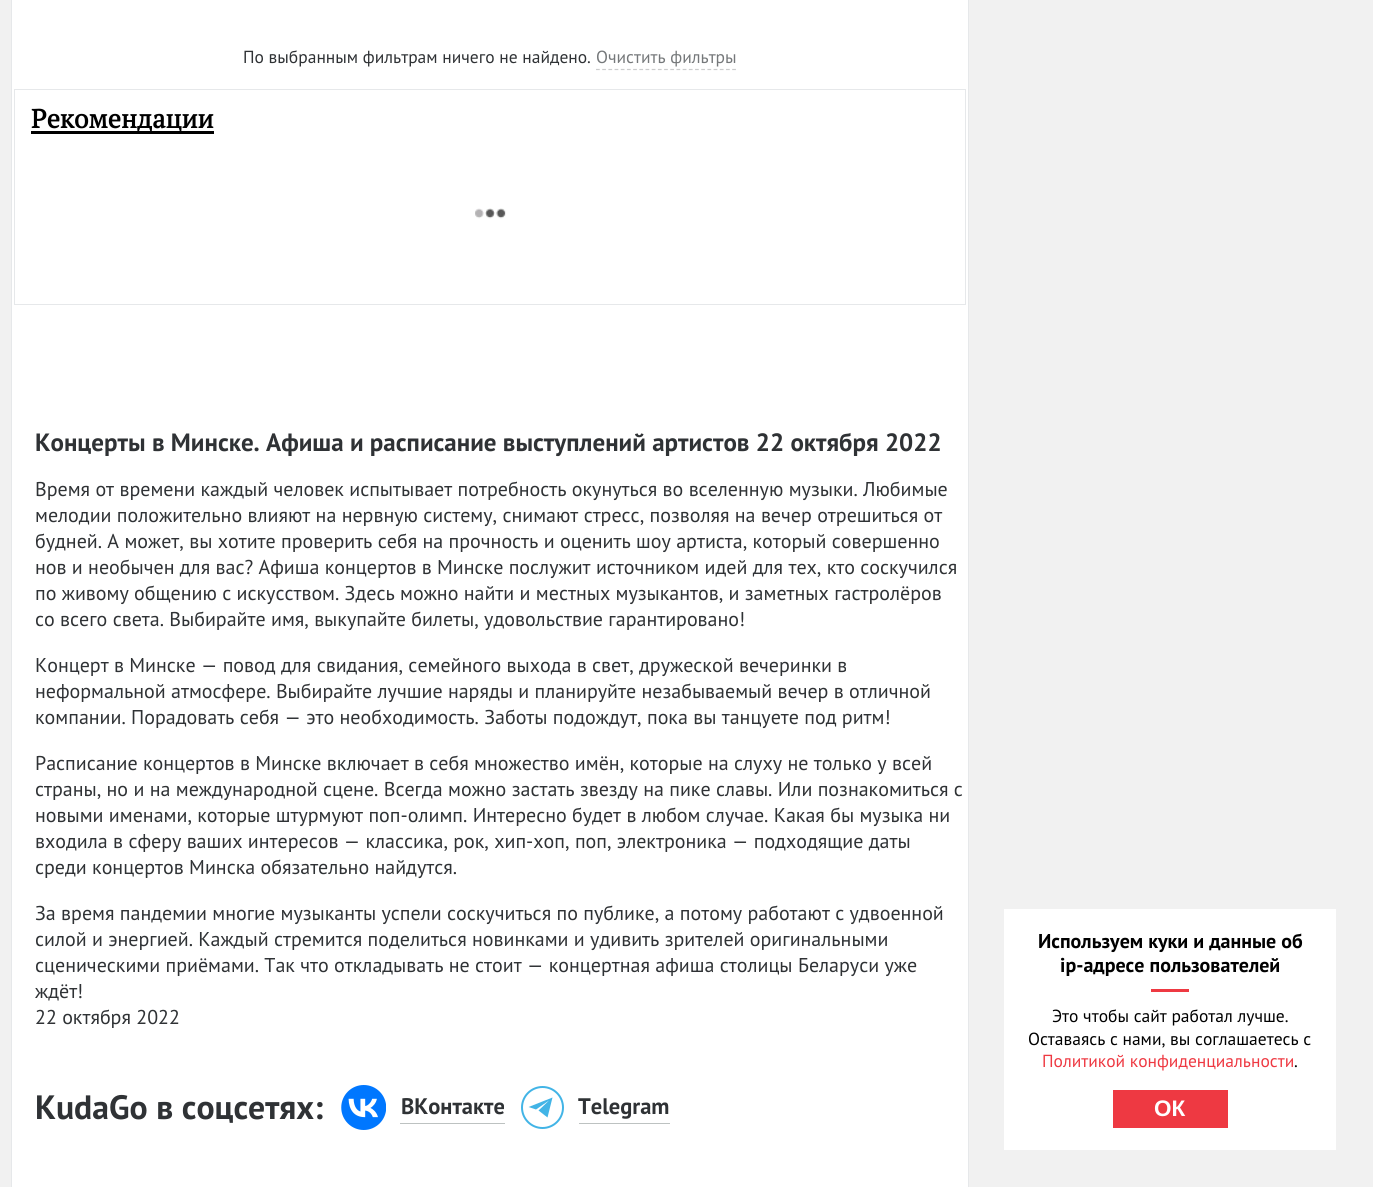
import math
import cairo

surface = cairo.ImageSurface(cairo.Format.RGB24, 1373, 1187)
ctx = cairo.Context(surface)
options = cairo.FontOptions()
options.set_hint_metrics(cairo.HintMetrics.OFF)
options.set_hint_style(cairo.HintStyle.NONE)
ctx.set_font_options(options)
ctx.set_miter_limit(4)


def ink(r, g, b):
    ctx.set_source_rgb(r / 255, g / 255, b / 255)


def write(x, y, s, family, size, color, bold=False, italic=False):
    ctx.select_font_face(family, cairo.FontSlant.ITALIC if italic else cairo.FontSlant.NORMAL, cairo.FontWeight.BOLD if bold else cairo.FontWeight.NORMAL)
    ctx.set_font_size(size)
    ink(*color)
    ctx.move_to(x, y)
    ctx.show_text(s)


def block(x, y, w, h, *color):
    ink(*color)
    ctx.rectangle(x, y, w, h)
    ctx.fill()


def paste(path, x, y, w, h):
    ctx.save()
    ctx.set_source_surface(cairo.ImageSurface.create_from_png(path), x, y)
    ctx.rectangle(x, y, w, h)
    ctx.fill()
    ctx.restore()


s1 = dict(family="PT Sans", size=17.5, color=(47, 50, 53))
s2 = dict(family="PT Sans", size=17.5, color=(117, 120, 122))
s3 = dict(family="PT Serif", size=26.25, color=(0, 0, 0), bold=True)
s4 = dict(family="PT Sans", size=25, color=(47, 50, 53), bold=True)
s5 = dict(family="PT Sans", size=20, color=(47, 50, 53))
s6 = dict(family="PT Sans", size=33.75, color=(47, 50, 53), bold=True)
s7 = dict(family="PT Sans", size=22.5, color=(47, 50, 53), bold=True)
s8 = dict(family="PT Sans", size=20, color=(0, 0, 0), bold=True)
s9 = dict(family="PT Sans", size=17.5, color=(0, 0, 0))
s10 = dict(family="PT Sans", size=17.5, color=(238, 57, 66))
s11 = dict(family="Liberation Sans", size=22.5, color=(255, 255, 255), bold=True)

ink(241, 241, 241)
ctx.paint()
ink(255, 255, 255)
ctx.rectangle(11.5, -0.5, 957, 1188)
ctx.fill_preserve()
ink(230, 232, 234)
ctx.set_line_width(1)
ctx.stroke()
write(243, 63, "По выбранным фильтрам ничего не найдено.", **s1)
ctx.new_path()
ctx.move_to(596, 69.5)
ctx.line_to(736, 69.5)
ink(203, 204, 205)
ctx.set_line_width(1.2)
ctx.set_dash([3.75, 2.44])
ctx.stroke()
write(596, 63, "Очистить фильтры", **s2)
ctx.rectangle(14.5, 89.5, 951, 215)
ink(230, 232, 234)
ctx.set_line_width(1)
ctx.set_dash([])
ctx.stroke()
block(31, 131, 183, 3, 0, 0, 0)
write(31, 128, "Рекомендации", **s3)
paste("pic1.png", 475, 208, 31, 11)
write(35, 451, "Концерты в Минске. Афиша и расписание выступлений артистов 22 октября 2022", **s4)
write(35, 496, "Время от времени каждый человек испытывает потребность окунуться во вселенную музыки. Любимые", **s5)
write(35, 522, "мелодии положительно влияют на нервную систему, снимают стресс, позволяя на вечер отрешиться от", **s5)
write(35, 548, "будней. А может, вы хотите проверить себя на прочность и оценить шоу артиста, который совершенно", **s5)
write(35, 574, "нов и необычен для вас? Афиша концертов в Минске послужит источником идей для тех, кто соскучился", **s5)
write(35, 600, "по живому общению с искусством. Здесь можно найти и местных музыкантов, и заметных гастролёров", **s5)
write(35, 626, "со всего света. Выбирайте имя, выкупайте билеты, удовольствие гарантировано!", **s5)
write(35, 672, "Концерт в Минске — повод для свидания, семейного выхода в свет, дружеской вечеринки в", **s5)
write(35, 698, "неформальной атмосфере. Выбирайте лучшие наряды и планируйте незабываемый вечер в отличной", **s5)
write(35, 724, "компании. Порадовать себя — это необходимость. Заботы подождут, пока вы танцуете под ритм!", **s5)
write(35, 770, "Расписание концертов в Минске включает в себя множество имён, которые на слуху не только у всей", **s5)
write(35, 796, "страны, но и на международной сцене. Всегда можно застать звезду на пике славы. Или познакомиться с", **s5)
write(35, 822, "новыми именами, которые штурмуют поп-олимп. Интересно будет в любом случае. Какая бы музыка ни", **s5)
write(35, 848, "входила в сферу ваших интересов — классика, рок, хип-хоп, поп, электроника — подходящие даты", **s5)
write(35, 874, "среди концертов Минска обязательно найдутся.", **s5)
write(35, 920, "За время пандемии многие музыканты успели соскучиться по публике, а потому работают с удвоенной", **s5)
write(35, 946, "силой и энергией. Каждый стремится поделиться новинками и удивить зрителей оригинальными", **s5)
write(35, 972, "сценическими приёмами. Так что откладывать не стоит — концертная афиша столицы Беларуси уже", **s5)
write(35, 998, "ждёт!", **s5)
write(35, 1024, "22 октября 2022", **s5)
write(35, 1119, "KudaGo в соцсетях:", **s6)
paste("pic2.png", 341, 1085, 45, 45)
block(400, 1123, 105, 1, 189, 194, 193)
write(401, 1114, "ВКонтакте", **s7)
ctx.new_path()
ctx.arc(542.5, 1107.5, 20.5, 0, 2 * math.pi)
ink(66, 180, 230)
ctx.set_line_width(2)
ctx.stroke()
ctx.new_path()
ctx.move_to(538.5, 1110.5)
ctx.line_to(547.5, 1117.5)
ctx.line_to(552.5, 1097.5)
ctx.line_to(528.5, 1107)
ctx.line_to(536, 1109.5)
ctx.line_to(549, 1100.5)
ctx.close_path()
ctx.fill()
block(579, 1123, 91, 1, 189, 194, 193)
write(578, 1114, "Telegram", **s7)
block(1004, 909, 332, 241, 255, 255, 255)
write(1038, 948, "Используем куки и данные об", **s8)
write(1060, 972, "ip-адресе пользователей", **s8)
block(1151, 989, 38, 3, 238, 57, 66)
write(1052, 1022, "Это чтобы сайт работал лучше.", **s9)
write(1028, 1045, "Оставаясь с нами, вы соглашаетесь с", **s9)
write(1042, 1067, "Политикой конфиденциальности", **s10)
write(1294, 1067, ".", **s9)
block(1113, 1090, 115, 38, 238, 57, 66)
write(1154, 1116, "ОК", **s11)
surface.write_to_png("screenshot.png")
